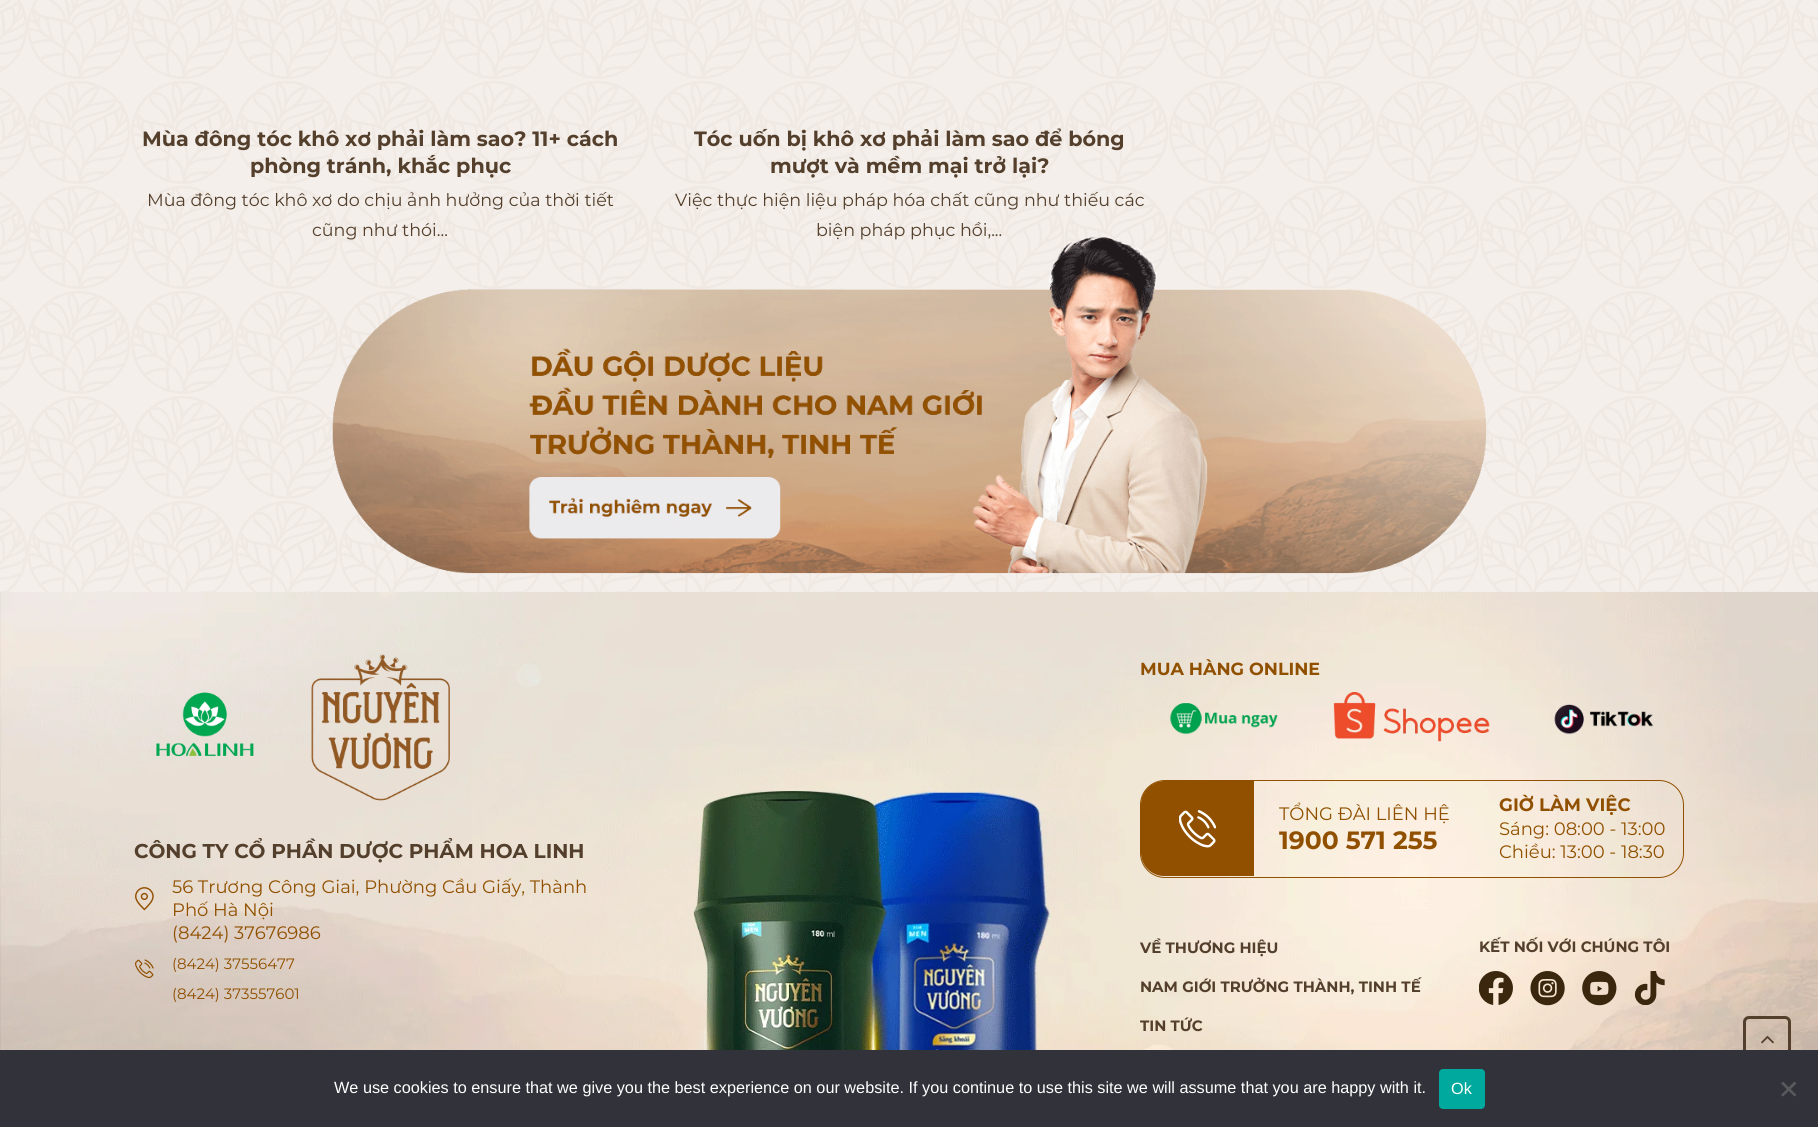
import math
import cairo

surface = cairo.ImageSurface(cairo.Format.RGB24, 1818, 1127)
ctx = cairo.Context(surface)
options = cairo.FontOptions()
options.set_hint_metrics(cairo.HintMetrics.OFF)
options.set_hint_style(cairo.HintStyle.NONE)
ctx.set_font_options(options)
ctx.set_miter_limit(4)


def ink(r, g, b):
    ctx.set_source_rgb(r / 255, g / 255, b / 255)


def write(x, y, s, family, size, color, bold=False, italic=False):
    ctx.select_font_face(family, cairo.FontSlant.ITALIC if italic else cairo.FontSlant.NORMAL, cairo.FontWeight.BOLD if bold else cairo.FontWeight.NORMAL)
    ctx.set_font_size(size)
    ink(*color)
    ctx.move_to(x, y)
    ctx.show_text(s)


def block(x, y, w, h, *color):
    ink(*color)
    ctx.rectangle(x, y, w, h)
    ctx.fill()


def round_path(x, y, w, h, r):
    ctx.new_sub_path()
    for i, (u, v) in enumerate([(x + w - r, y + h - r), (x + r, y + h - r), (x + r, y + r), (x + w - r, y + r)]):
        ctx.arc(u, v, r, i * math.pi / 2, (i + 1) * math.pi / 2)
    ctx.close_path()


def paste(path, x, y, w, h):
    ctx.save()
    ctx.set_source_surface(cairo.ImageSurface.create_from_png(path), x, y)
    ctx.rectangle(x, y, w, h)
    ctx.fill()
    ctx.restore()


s1 = dict(family="Montserrat", size=20.7, color=(83, 63, 43), bold=True)
s2 = dict(family="Montserrat", size=17.5, color=(83, 63, 43))
s3 = dict(family="Montserrat", size=20, color=(83, 63, 43), bold=True)
s4 = dict(family="Montserrat", size=18, color=(144, 80, 0))
s5 = dict(family="Montserrat", size=15, color=(144, 80, 0))
s6 = dict(family="Montserrat", size=17.5, color=(144, 80, 0), bold=True)
s7 = dict(family="Montserrat", size=25, color=(144, 80, 0), bold=True)
s8 = dict(family="Montserrat", size=18, color=(144, 80, 0), bold=True)
s9 = dict(family="Montserrat", size=15, color=(83, 63, 43), bold=True)
s10 = dict(family="Liberation Sans", size=16.25, color=(255, 255, 255))

ink(244, 239, 235)
ctx.paint()
paste("pic1.png", 0, 0, 1818, 592)
write(142, 146, "Mùa đông tóc khô xơ phải làm sao? 11+ cách", **s1)
write(250, 173, "phòng tránh, khắc phục", **s1)
write(147, 206, "Mùa đông tóc khô xơ do chịu ảnh hưởng của thời tiết", **s2)
write(312, 236, "cũng như thói...", **s2)
write(694, 146, "Tóc uốn bị khô xơ phải làm sao để bóng", **s1)
write(770, 173, "mượt và mềm mại trở lại?", **s1)
write(675, 206, "Việc thực hiện liệu pháp hóa chất cũng như thiếu các", **s2)
write(816, 236, "biện pháp phục hồi,...", **s2)
paste("pic2.png", 332, 234, 1154, 340)
paste("pic3.png", 0, 592, 1818, 458)
paste("pic4.png", 156, 692, 98, 65)
paste("pic5.png", 311, 654, 139, 147)
write(134, 858, "CÔNG TY CỔ PHẦN DƯỢC PHẨM HOA LINH", **s3)
paste("pic6.png", 135, 887, 19, 24)
write(172, 893, "56 Trương Công Giai, Phường Cầu Giấy, Thành", **s4)
write(172, 916, "Phố Hà Nội", **s4)
paste("pic7.png", 135, 959, 19, 20)
write(172, 939, "(8424) 37676986", **s4)
write(172, 969, "(8424) 37556477", **s5)
write(172, 999, "(8424) 373557601", **s5)
write(1140, 675, "MUA HÀNG ONLINE", **s6)
paste("pic8.png", 1170, 703, 108, 32)
paste("pic9.png", 1333, 692, 157, 50)
paste("pic10.png", 1554, 704, 100, 31)
round_path(1140.5, 780.5, 543, 97, 24.5)
ink(145, 80, 0)
ctx.set_line_width(1)
ctx.stroke()
ink(144, 80, 0)
ctx.new_path()
ctx.move_to(1164, 781)
ctx.line_to(1254, 781)
ctx.line_to(1254, 876)
ctx.line_to(1164, 876)
ctx.curve_to(1151.5, 876, 1141, 865.5, 1141, 853)
ctx.line_to(1141, 804)
ctx.curve_to(1141, 791.5, 1151.5, 781, 1164, 781)
ctx.close_path()
ctx.fill()
paste("pic11.png", 1179, 810, 37, 38)
write(1279, 820, "TỔNG ĐÀI LIÊN HỆ", **s4)
write(1279, 849, "1900 571 255", **s7)
write(1499, 811, "GIỜ LÀM VIỆC", **s8)
write(1499, 835, "Sáng: 08:00 - 13:00", **s4)
write(1499, 858, "Chiều: 13:00 - 18:30", **s4)
write(1140, 953, "VỀ THƯƠNG HIỆU", **s9)
write(1140, 992, "NAM GIỚI TRƯỞNG THÀNH, TINH TẾ", **s9)
write(1140, 1031, "TIN TỨC", **s9)
write(1479, 952, "KẾT NỐI VỚI CHÚNG TÔI", **s9)
paste("pic12.png", 1479, 971, 34, 34)
paste("pic13.png", 1530, 971, 35, 35)
paste("pic14.png", 1582, 971, 35, 35)
paste("pic15.png", 1634, 971, 31, 34)
round_path(1744.5, 1017.5, 45, 46, 4.5)
ctx.set_line_width(3)
ctx.stroke()
paste("pic16.png", 1761, 1035, 13, 9)
block(0, 1050, 1818, 77, 50, 50, 58)
write(334, 1093, "We use cookies to ensure that we give you the best experience on our website. If you continue to use this site we will assume that you are happy with it.", **s10)
ink(0, 169, 157)
round_path(1439, 1069, 46, 40, 4)
ctx.fill()
write(1451, 1094, "Ok", **s10)
ink(89, 89, 93)
ctx.new_path()
ctx.move_to(1794.5, 1081.5)
ctx.line_to(1796.5, 1083.5)
ctx.line_to(1783, 1096.5)
ctx.line_to(1781, 1095)
ctx.close_path()
ctx.fill()
ctx.new_path()
ctx.move_to(1781, 1083.5)
ctx.line_to(1783, 1081.5)
ctx.line_to(1796.5, 1095)
ctx.line_to(1794.5, 1096.5)
ctx.close_path()
ctx.fill()
surface.write_to_png("screenshot.png")
